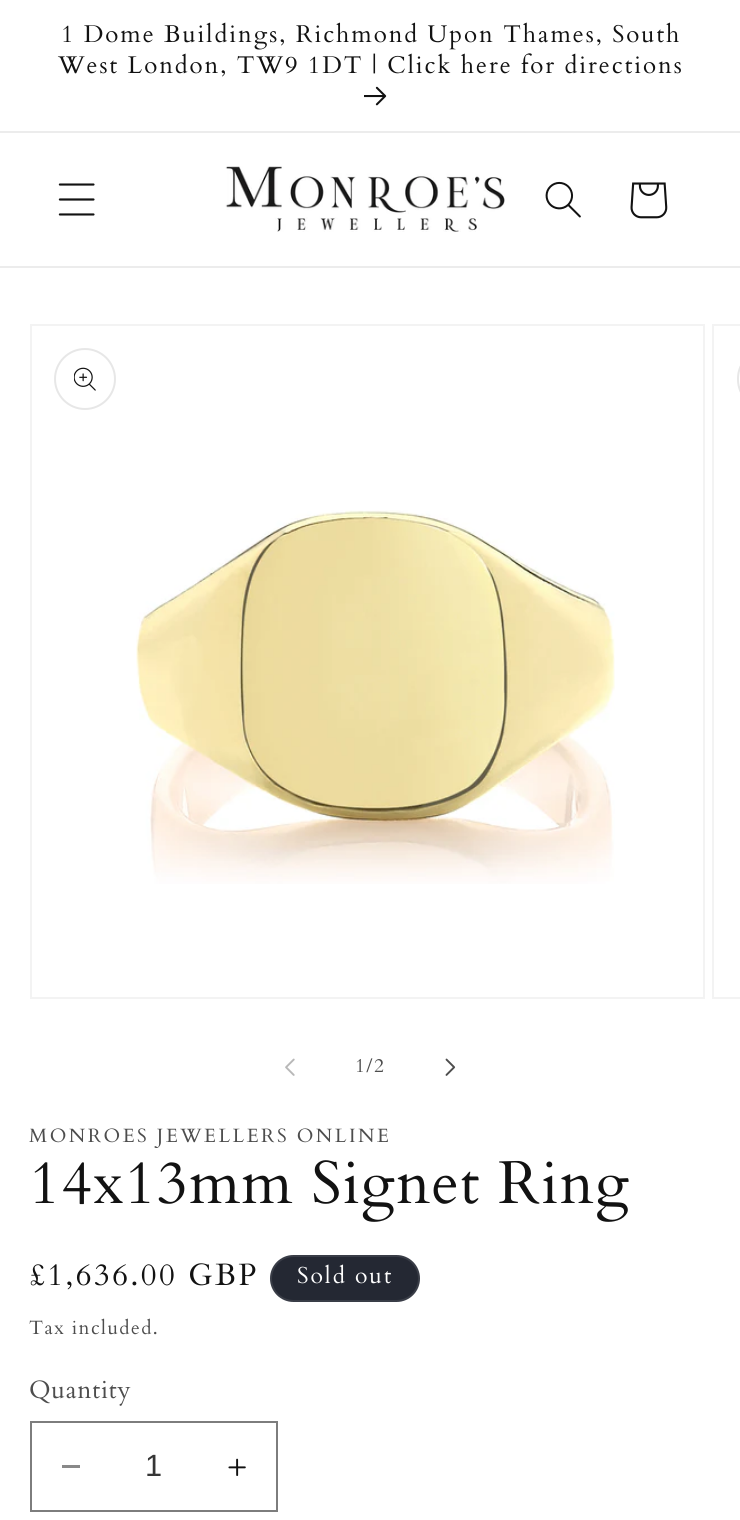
import math
import cairo

surface = cairo.ImageSurface(cairo.Format.RGB24, 740, 1520)
ctx = cairo.Context(surface)
options = cairo.FontOptions()
options.set_hint_metrics(cairo.HintMetrics.OFF)
options.set_hint_style(cairo.HintStyle.NONE)
ctx.set_font_options(options)
ctx.set_miter_limit(4)


def ink(r, g, b):
    ctx.set_source_rgb(r / 255, g / 255, b / 255)


def write(x, y, s, family, size, color, bold=False, italic=False):
    ctx.select_font_face(family, cairo.FontSlant.ITALIC if italic else cairo.FontSlant.NORMAL, cairo.FontWeight.BOLD if bold else cairo.FontWeight.NORMAL)
    ctx.set_font_size(size)
    ink(*color)
    ctx.move_to(x, y)
    ctx.show_text(s)


def write_spaced(x, y, s, letter, word):
    ctx.move_to(x, y)
    for ch in s:
        ctx.show_text(ch)
        ctx.rel_move_to(letter + word * (ch == ' '), 0)


def block(x, y, w, h, *color):
    ink(*color)
    ctx.rectangle(x, y, w, h)
    ctx.fill()


def round_path(x, y, w, h, r):
    ctx.new_sub_path()
    for i, (u, v) in enumerate([(x + w - r, y + h - r), (x + r, y + h - r), (x + r, y + r), (x + w - r, y + r)]):
        ctx.arc(u, v, r, i * math.pi / 2, (i + 1) * math.pi / 2)
    ctx.close_path()


def paste(path, x, y, w, h):
    ctx.save()
    ctx.set_source_surface(cairo.ImageSurface.create_from_png(path), x, y)
    ctx.rectangle(x, y, w, h)
    ctx.fill()
    ctx.restore()


s1 = dict(family="Liberation Sans", size=30.75, color=(54, 54, 54))

ink(255, 255, 255)
ctx.paint()
block(0, 131, 740, 2, 236, 236, 236)
ctx.select_font_face("Cardo")
ctx.set_font_size(24.15)
ink(18, 18, 18)
write_spaced(61, 42, "1 Dome Buildings, Richmond Upon Thames, South", 1.95, 0)
write_spaced(58, 73, "West London, TW9 1DT | Click here for directions", 1.95, 0)
paste("pic1.png", 364, 86, 23, 20)
block(0, 266, 740, 2, 236, 236, 236)
paste("pic2.png", 58, 183, 37, 33)
paste("pic3.png", 225, 166, 280, 66)
paste("pic4.png", 545, 181, 36, 37)
paste("pic5.png", 630, 182, 38, 37)
ctx.rectangle(31, 325, 673, 673)
ink(243, 243, 243)
ctx.stroke()
ctx.arc(85, 379, 30, 0, 2 * math.pi)
ink(231, 231, 231)
ctx.stroke()
paste("pic6.png", 74, 367, 22, 24)
paste("pic7.png", 136, 510, 479, 374)
ctx.rectangle(713, 325, 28, 673)
ink(243, 243, 243)
ctx.stroke()
round_path(738, 349, 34, 60, 29.5)
ink(231, 231, 231)
ctx.stroke()
paste("pic8.png", 285, 1058, 10, 18)
ctx.set_font_size(19.25)
ink(77, 77, 77)
write_spaced(355, 1072, "1/2", 1.4, 0)
paste("pic9.png", 445, 1058, 11, 18)
write_spaced(29, 1142, "MONROES JEWELLERS ONLINE", 2.5, 0)
ctx.set_font_size(60.4)
ink(18, 18, 18)
write_spaced(29, 1203, "14x13mm Signet Ring", 1.25, 0)
ctx.set_font_size(30.75)
write_spaced(29, 1285, "£1,636.00 GBP", 2.5, 0)
ink(36, 40, 51)
round_path(270, 1255, 150, 47, 23.5)
ctx.fill()
round_path(271, 1256, 148, 45, 22.5)
ctx.set_source_rgba(1, 1, 1, 0.1)
ctx.stroke()
ctx.set_font_size(23)
ink(255, 255, 255)
write_spaced(297, 1283, "Sold out", 1.95, 0)
ctx.set_font_size(19.25)
ink(77, 77, 77)
write_spaced(29, 1334, "Tax included.", 1.4, 0)
ctx.set_font_size(25)
write_spaced(29, 1398, "Quantity", 0.75, 0)
block(62, 1465, 18, 3, 137, 137, 137)
paste("pic10.png", 228, 1458, 18, 18)
ctx.rectangle(31, 1422, 246, 89)
ink(125, 125, 125)
ctx.stroke()
write(145, 1476, "1", **s1)
surface.write_to_png("screenshot.png")
